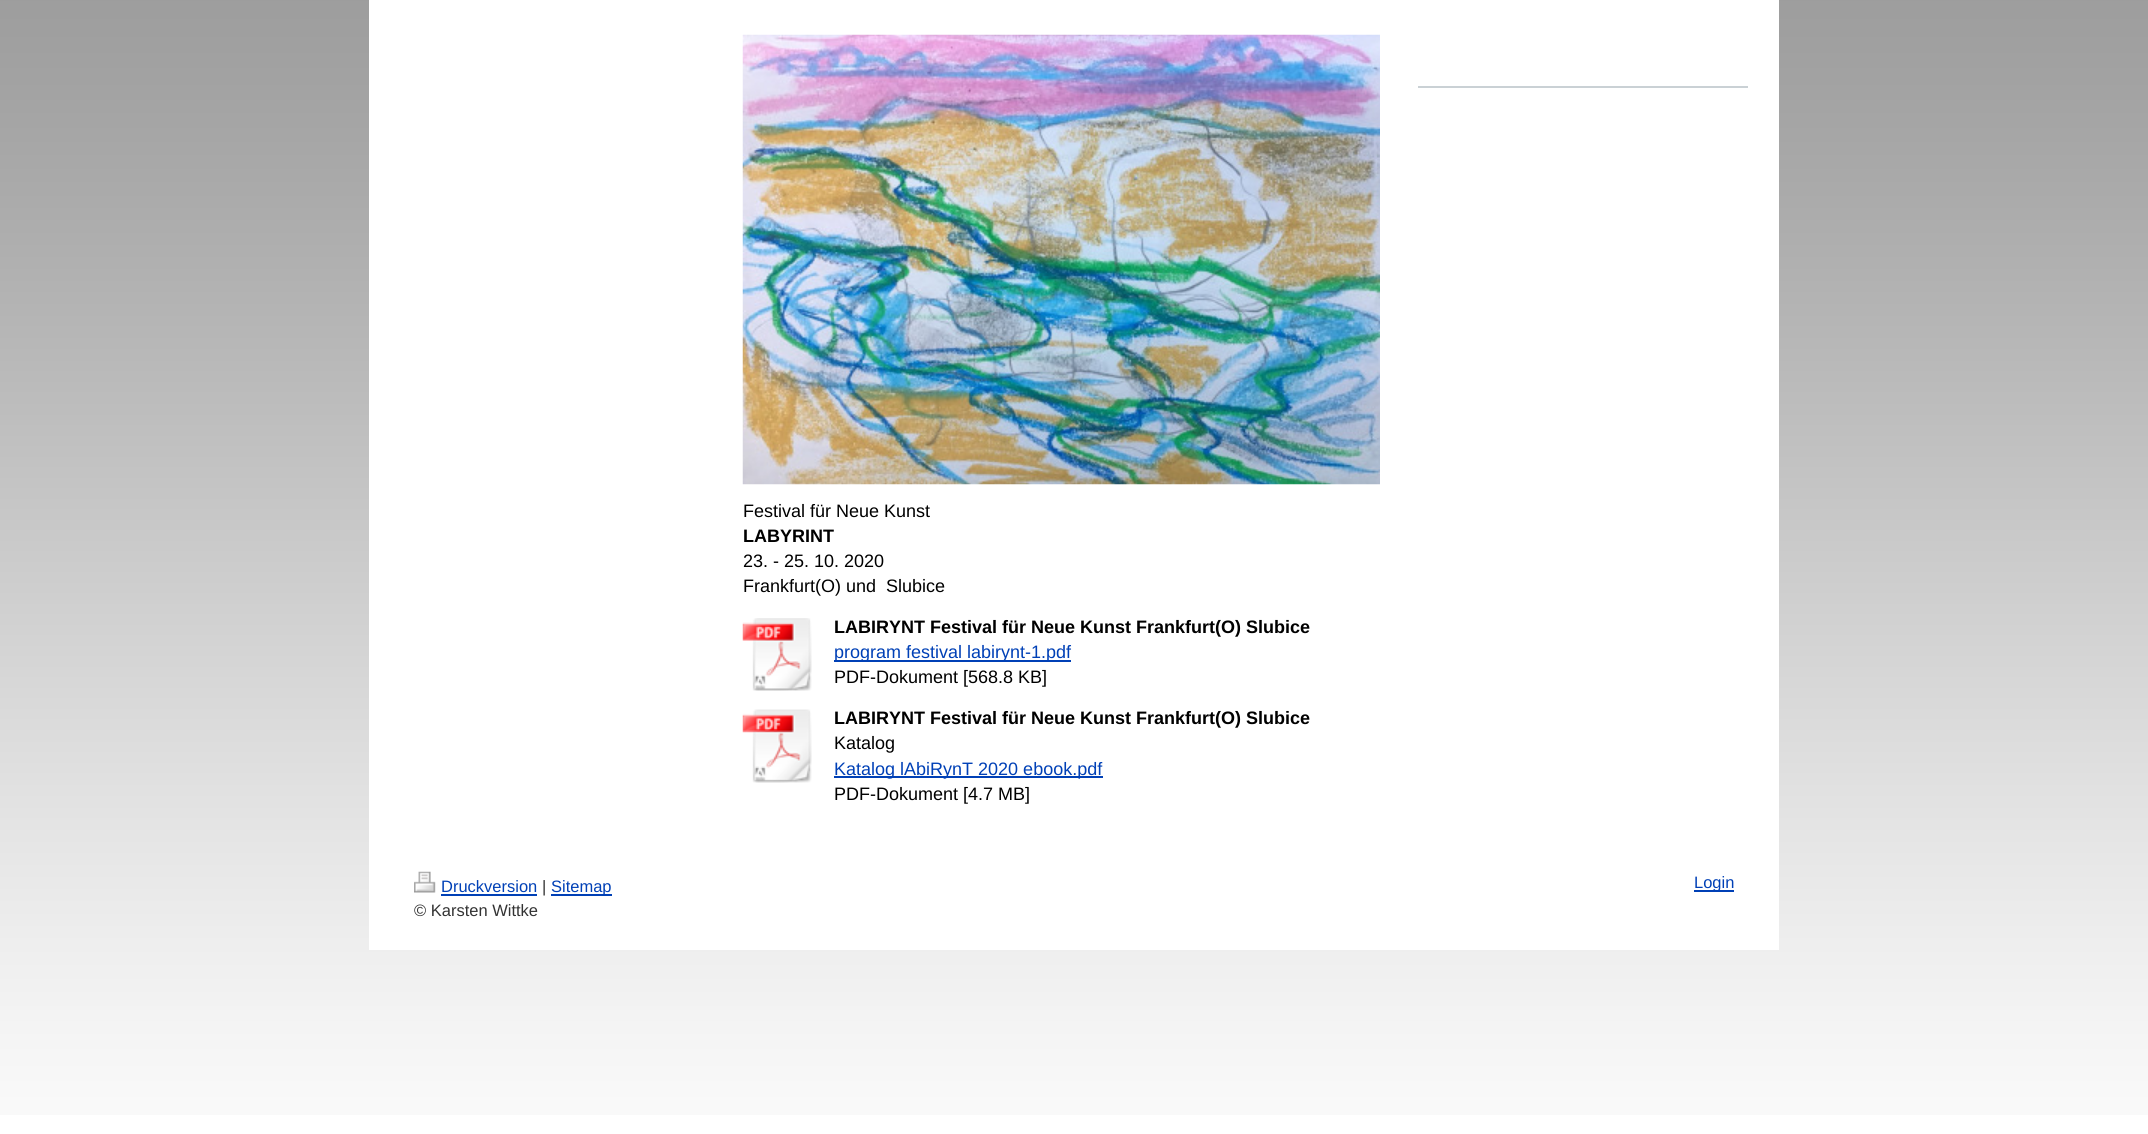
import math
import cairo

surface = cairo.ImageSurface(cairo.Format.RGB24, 2148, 1134)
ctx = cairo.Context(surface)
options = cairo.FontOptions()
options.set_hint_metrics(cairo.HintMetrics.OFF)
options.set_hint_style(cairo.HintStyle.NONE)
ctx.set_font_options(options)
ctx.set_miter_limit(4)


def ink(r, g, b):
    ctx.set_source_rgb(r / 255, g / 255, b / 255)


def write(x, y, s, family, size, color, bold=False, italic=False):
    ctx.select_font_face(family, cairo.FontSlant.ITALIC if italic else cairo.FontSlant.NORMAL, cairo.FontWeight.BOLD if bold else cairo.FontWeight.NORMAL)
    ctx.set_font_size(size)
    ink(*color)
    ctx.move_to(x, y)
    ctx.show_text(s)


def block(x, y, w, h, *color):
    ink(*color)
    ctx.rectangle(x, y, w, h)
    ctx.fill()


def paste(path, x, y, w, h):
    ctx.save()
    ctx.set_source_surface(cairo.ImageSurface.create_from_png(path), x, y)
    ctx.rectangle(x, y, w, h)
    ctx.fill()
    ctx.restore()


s1 = dict(family="Liberation Sans", size=18, color=(0, 0, 0))
s2 = dict(family="Liberation Sans", size=18, color=(0, 0, 0), bold=True)
s3 = dict(family="Liberation Sans", size=18, color=(0, 64, 182))
s4 = dict(family="Liberation Sans", size=16.5, color=(0, 64, 182))
s5 = dict(family="Liberation Sans", size=16.5, color=(51, 51, 51))

ink(255, 255, 255)
ctx.paint()
paste("pic1.png", 0, 0, 2148, 1115)
block(369, 0, 1410, 950, 255, 255, 255)
block(1418, 86, 330, 2, 202, 209, 213)
paste("pic2.png", 742, 34, 638, 451)
write(743, 517, "Festival für Neue Kunst", **s1)
write(743, 542, "LABYRINT", **s2)
write(743, 567, "23. - 25. 10. 2020", **s1)
write(743, 592, "Frankfurt(O) und  Slubice", **s1)
paste("pic3.png", 742, 618, 70, 73)
write(834, 633, "LABIRYNT Festival für Neue Kunst Frankfurt(O) Slubice", **s2)
block(834, 660, 237, 2, 0, 64, 182)
write(834, 658, "program festival labirynt-1.pdf", **s3)
write(834, 683, "PDF-Dokument [568.8 KB]", **s1)
paste("pic4.png", 742, 709, 70, 74)
write(834, 724, "LABIRYNT Festival für Neue Kunst Frankfurt(O) Slubice", **s2)
write(834, 749, "Katalog", **s1)
block(834, 776, 269, 2, 0, 64, 182)
write(834, 775, "Katalog lAbiRynT 2020 ebook.pdf", **s3)
write(834, 800, "PDF-Dokument [4.7 MB]", **s1)
paste("pic5.png", 414, 871, 22, 22)
write(441, 892, "Druckversion", **s4)
block(441, 894, 96, 2, 0, 64, 182)
write(542, 892, "|", **s5)
block(551, 894, 61, 2, 0, 64, 182)
write(551, 892, "Sitemap", **s4)
write(414, 916, "© Karsten Wittke", **s5)
block(1694, 890, 40, 2, 0, 64, 182)
write(1694, 888, "Login", **s4)
surface.write_to_png("screenshot.png")
